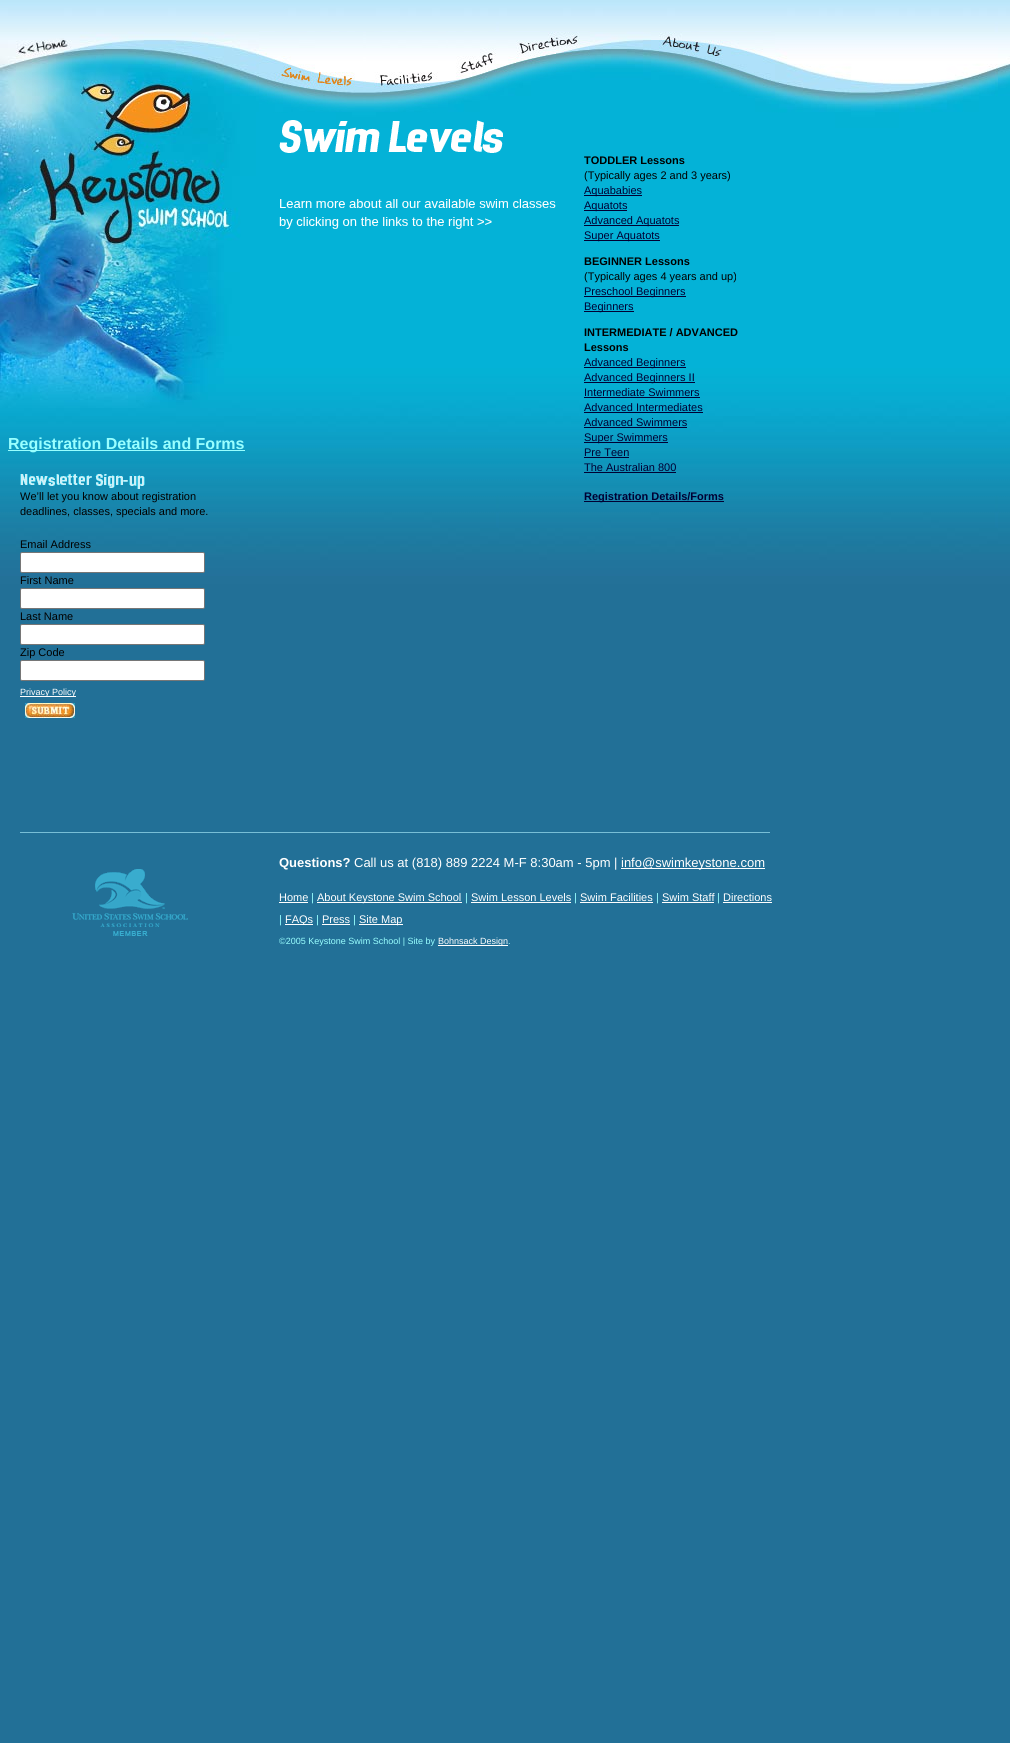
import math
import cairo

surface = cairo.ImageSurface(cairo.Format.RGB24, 1010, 1743)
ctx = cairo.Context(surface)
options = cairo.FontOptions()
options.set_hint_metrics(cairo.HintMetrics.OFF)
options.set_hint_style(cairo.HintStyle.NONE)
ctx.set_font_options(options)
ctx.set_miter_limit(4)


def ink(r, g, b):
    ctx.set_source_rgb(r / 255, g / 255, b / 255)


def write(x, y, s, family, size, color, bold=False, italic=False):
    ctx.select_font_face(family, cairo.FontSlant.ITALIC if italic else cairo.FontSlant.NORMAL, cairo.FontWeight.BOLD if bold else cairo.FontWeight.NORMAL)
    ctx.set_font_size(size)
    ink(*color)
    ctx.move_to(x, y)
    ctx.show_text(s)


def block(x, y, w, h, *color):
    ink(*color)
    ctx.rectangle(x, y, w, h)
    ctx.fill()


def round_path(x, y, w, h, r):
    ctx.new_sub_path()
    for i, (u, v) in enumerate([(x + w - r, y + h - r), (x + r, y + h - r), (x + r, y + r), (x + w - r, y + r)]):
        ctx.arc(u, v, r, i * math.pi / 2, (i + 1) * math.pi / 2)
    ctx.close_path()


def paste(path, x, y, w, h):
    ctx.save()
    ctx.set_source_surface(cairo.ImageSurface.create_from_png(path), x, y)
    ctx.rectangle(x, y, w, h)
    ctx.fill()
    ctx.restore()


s1 = dict(family="Liberation Sans", size=11, color=(0, 0, 0), bold=True)
s2 = dict(family="Liberation Sans", size=11, color=(0, 0, 0))
s3 = dict(family="Liberation Sans", size=11, color=(0, 0, 51))
s4 = dict(family="Liberation Sans", size=11, color=(0, 0, 51), bold=True)
s5 = dict(family="Liberation Sans", size=16, color=(153, 255, 255), bold=True)
s6 = dict(family="Liberation Sans", size=9, color=(255, 255, 255))
s7 = dict(family="Liberation Sans", size=13, color=(255, 255, 255), bold=True)
s8 = dict(family="Liberation Sans", size=13, color=(255, 255, 255))
s9 = dict(family="Liberation Sans", size=11, color=(255, 255, 255))
s10 = dict(family="Liberation Sans", size=11, color=(153, 255, 255))
s11 = dict(family="Liberation Sans", size=9, color=(153, 255, 255))

ink(255, 255, 255)
ctx.paint()
paste("pic1.png", 0, 0, 1010, 1743)
paste("pic2.png", 279, 120, 224, 33)
paste("pic3.png", 279, 199, 277, 30)
write(584, 164, "TODDLER Lessons", **s1)
write(584, 179, "(Typically ages 2 and 3 years)", **s2)
block(584, 195, 58, 1, 0, 0, 51)
write(584, 194, "Aquababies", **s3)
block(584, 210, 43, 1, 0, 0, 51)
write(584, 209, "Aquatots", **s3)
block(584, 225, 95, 1, 0, 0, 51)
write(584, 224, "Advanced Aquatots", **s3)
block(584, 240, 76, 1, 0, 0, 51)
write(584, 239, "Super Aquatots", **s3)
write(584, 265, "BEGINNER Lessons", **s1)
write(584, 280, "(Typically ages 4 years and up)", **s2)
block(584, 296, 102, 1, 0, 0, 51)
write(584, 295, "Preschool Beginners", **s3)
block(584, 311, 50, 1, 0, 0, 51)
write(584, 310, "Beginners", **s3)
write(584, 336, "INTERMEDIATE / ADVANCED", **s1)
write(584, 351, "Lessons", **s1)
block(584, 367, 102, 1, 0, 0, 51)
write(584, 366, "Advanced Beginners", **s3)
block(584, 382, 111, 1, 0, 0, 51)
write(584, 381, "Advanced Beginners II", **s3)
write(584, 396, "Intermediate Swimmers", **s3)
block(584, 397, 116, 1, 0, 0, 51)
write(584, 411, "Advanced Intermediates", **s3)
block(584, 412, 119, 1, 0, 0, 51)
write(584, 426, "Advanced Swimmers", **s3)
block(584, 427, 103, 1, 0, 0, 51)
block(584, 442, 84, 1, 0, 0, 51)
write(584, 441, "Super Swimmers", **s3)
write(584, 456, "Pre Teen", **s3)
block(584, 457, 45, 1, 0, 0, 51)
write(584, 471, "The Australian 800", **s3)
block(584, 472, 92, 1, 0, 0, 51)
block(584, 501, 140, 1, 0, 0, 51)
write(584, 500, "Registration Details/Forms", **s4)
paste("pic4.png", 259, 31, 107, 81)
paste("pic5.png", 366, 31, 82, 81)
paste("pic6.png", 448, 31, 60, 69)
paste("pic7.png", 508, 31, 82, 50)
paste("pic8.png", 651, 31, 124, 67)
paste("pic9.png", 0, 38, 259, 370)
block(8, 450, 237, 1, 153, 255, 255)
write(8, 449, "Registration Details and Forms", **s5)
paste("pic10.png", 20, 474, 125, 15)
write(20, 500, "We’ll let you know about registration", **s2)
write(20, 515, "deadlines, classes, specials and more.", **s2)
write(20, 548, "Email Address", **s2)
ink(255, 255, 255)
round_path(20.5, 552.5, 184, 20, 1.5)
ctx.fill_preserve()
ink(118, 118, 118)
ctx.set_line_width(1)
ctx.stroke()
write(20, 584, "First Name", **s2)
ink(255, 255, 255)
round_path(20.5, 588.5, 184, 20, 1.5)
ctx.fill_preserve()
ink(118, 118, 118)
ctx.stroke()
write(20, 620, "Last Name", **s2)
ink(255, 255, 255)
round_path(20.5, 624.5, 184, 20, 1.5)
ctx.fill_preserve()
ink(118, 118, 118)
ctx.stroke()
write(20, 656, "Zip Code", **s2)
ink(255, 255, 255)
round_path(20.5, 660.5, 184, 20, 1.5)
ctx.fill_preserve()
ink(118, 118, 118)
ctx.stroke()
block(20, 696, 56, 1, 255, 255, 255)
write(20, 695, "Privacy Policy", **s6)
paste("pic11.png", 25, 703, 50, 15)
block(20, 832, 750, 1, 120, 190, 214)
paste("pic12.png", 72, 869, 116, 67)
write(279, 867, "Questions?", **s7)
write(354, 867, "Call us at (818) 889 2224 M-F 8:30am - 5pm |", **s8)
block(621, 868, 144, 1, 255, 255, 255)
write(621, 867, "info@swimkeystone.com", **s8)
write(279, 901, "Home", **s9)
block(279, 902, 29, 1, 255, 255, 255)
write(311, 901, "|", **s10)
block(317, 902, 145, 1, 255, 255, 255)
write(317, 901, "About Keystone Swim School", **s9)
write(465, 901, "|", **s10)
write(471, 901, "Swim Lesson Levels", **s9)
block(471, 902, 100, 1, 255, 255, 255)
write(574, 901, "|", **s10)
write(580, 901, "Swim Facilities", **s9)
block(580, 902, 73, 1, 255, 255, 255)
write(656, 901, "|", **s10)
write(662, 901, "Swim Staff", **s9)
block(662, 902, 52, 1, 255, 255, 255)
write(717, 901, "|", **s10)
write(723, 901, "Directions", **s9)
block(723, 902, 49, 1, 255, 255, 255)
write(279, 923, "|", **s10)
block(285, 924, 28, 1, 255, 255, 255)
write(285, 923, "FAQs", **s9)
write(316, 923, "|", **s10)
write(322, 923, "Press", **s9)
block(322, 924, 28, 1, 255, 255, 255)
write(353, 923, "|", **s10)
block(359, 924, 44, 1, 255, 255, 255)
write(359, 923, "Site Map", **s9)
write(279, 944, "©2005 Keystone Swim School | Site by", **s11)
block(438, 945, 70, 1, 255, 255, 255)
write(438, 944, "Bohnsack Design", **s6)
write(508, 944, ".", **s11)
surface.write_to_png("screenshot.png")
